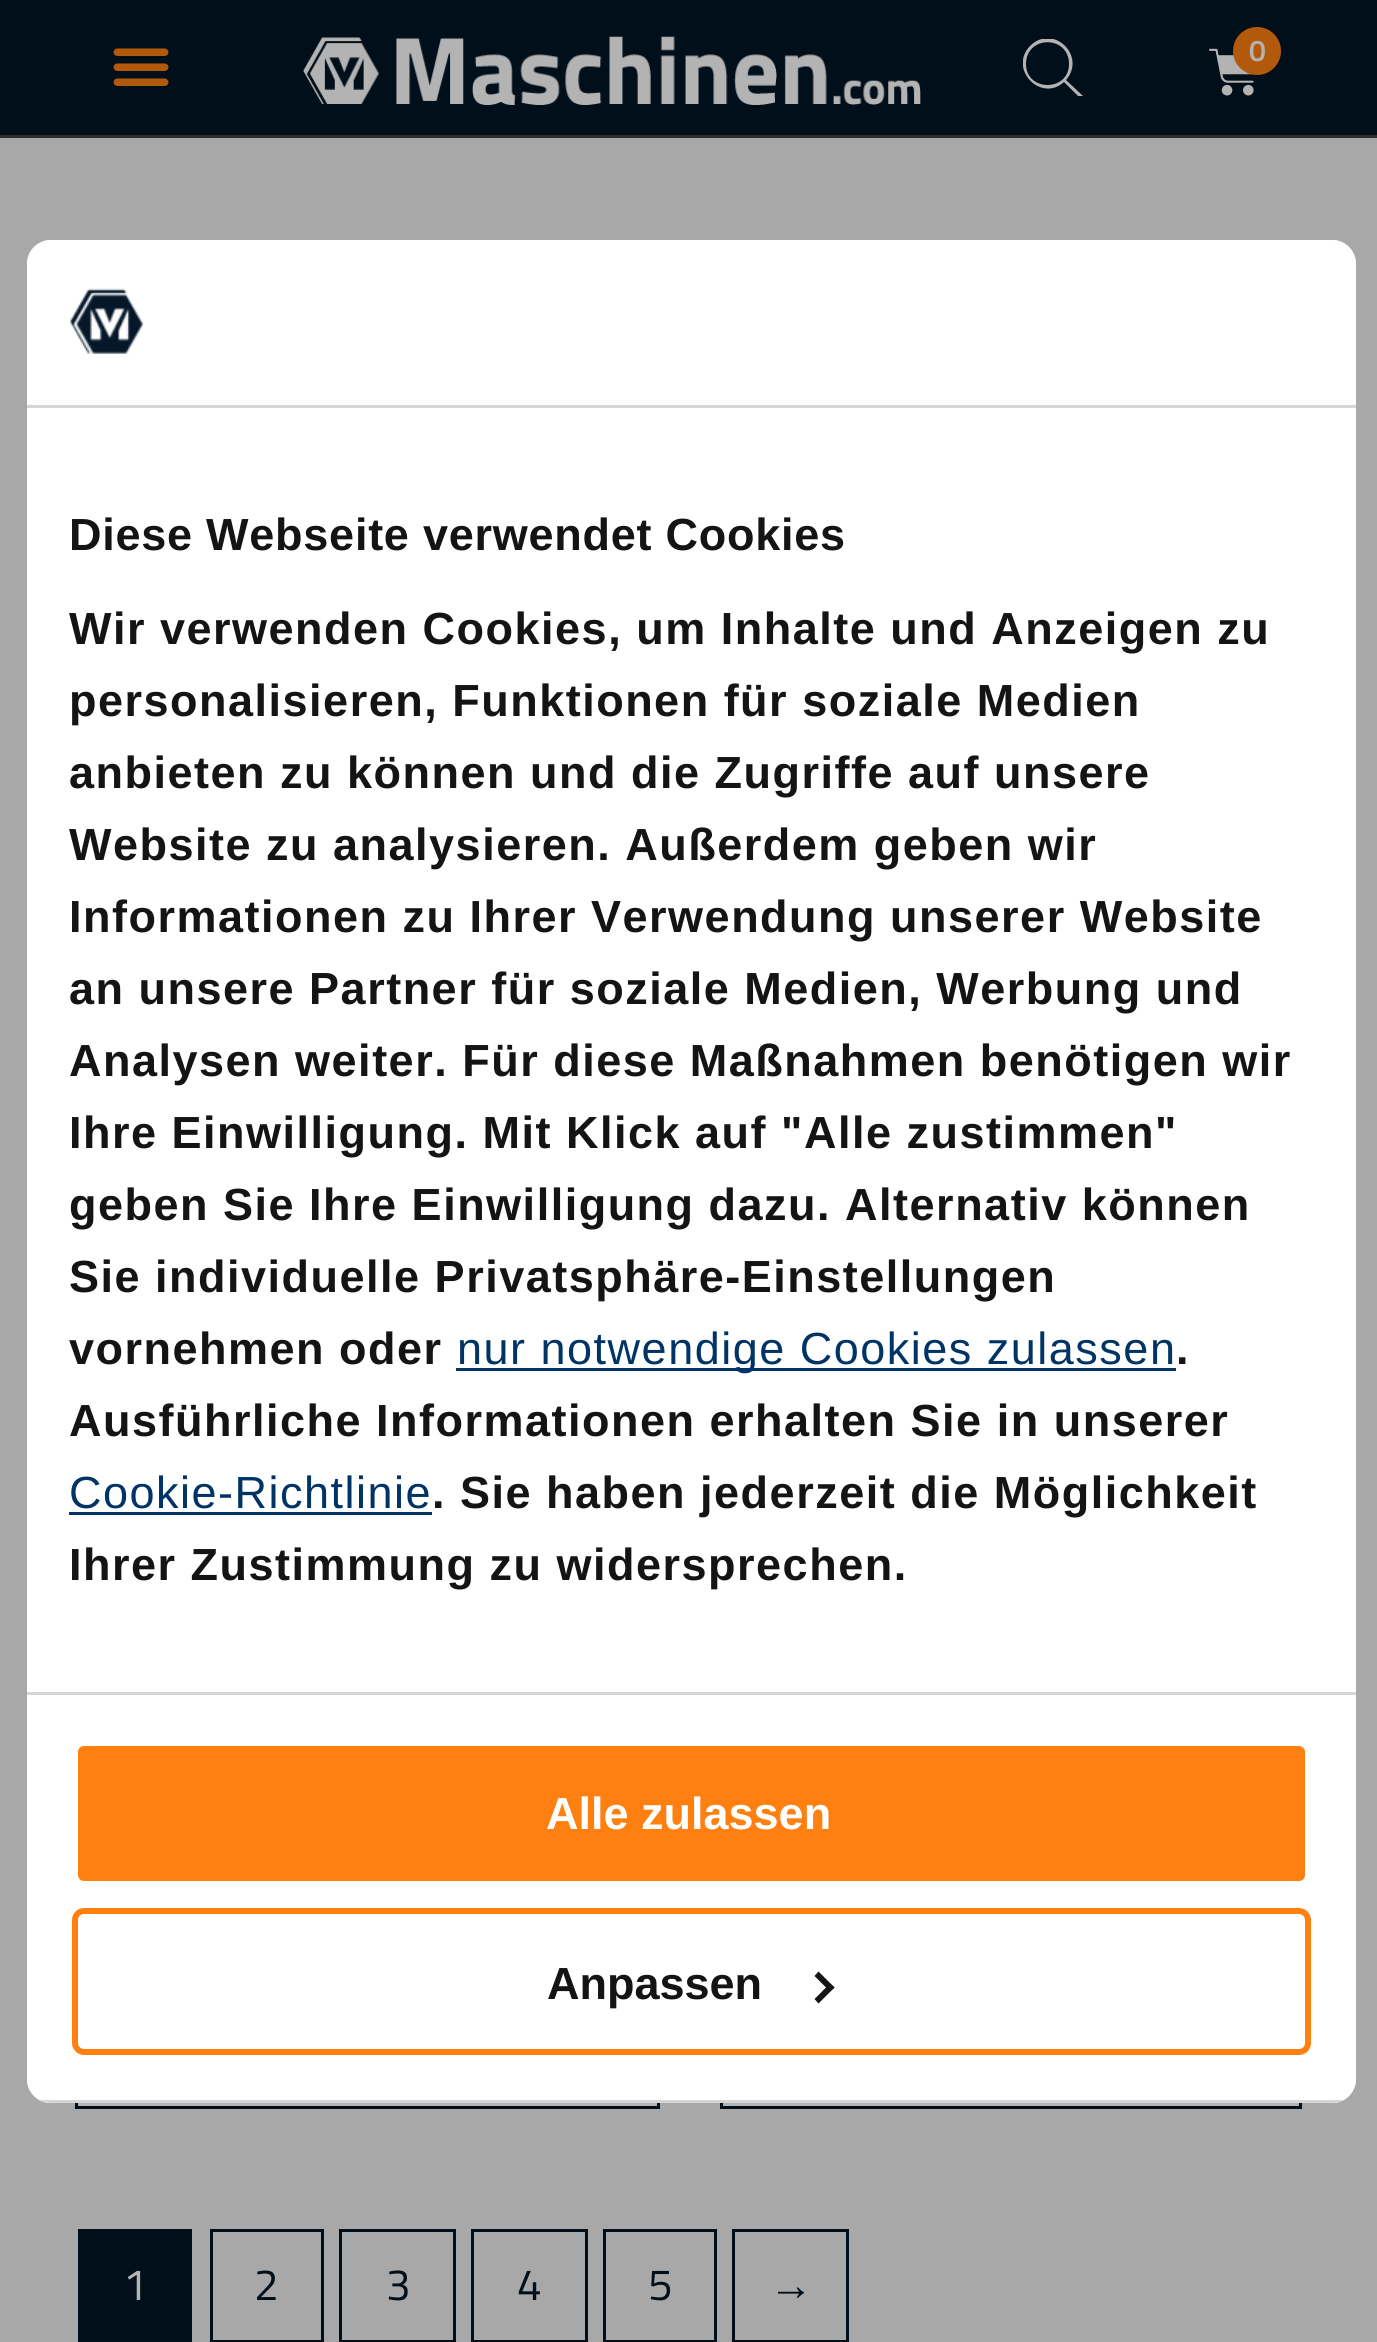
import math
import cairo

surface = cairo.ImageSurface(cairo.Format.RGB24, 1377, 2342)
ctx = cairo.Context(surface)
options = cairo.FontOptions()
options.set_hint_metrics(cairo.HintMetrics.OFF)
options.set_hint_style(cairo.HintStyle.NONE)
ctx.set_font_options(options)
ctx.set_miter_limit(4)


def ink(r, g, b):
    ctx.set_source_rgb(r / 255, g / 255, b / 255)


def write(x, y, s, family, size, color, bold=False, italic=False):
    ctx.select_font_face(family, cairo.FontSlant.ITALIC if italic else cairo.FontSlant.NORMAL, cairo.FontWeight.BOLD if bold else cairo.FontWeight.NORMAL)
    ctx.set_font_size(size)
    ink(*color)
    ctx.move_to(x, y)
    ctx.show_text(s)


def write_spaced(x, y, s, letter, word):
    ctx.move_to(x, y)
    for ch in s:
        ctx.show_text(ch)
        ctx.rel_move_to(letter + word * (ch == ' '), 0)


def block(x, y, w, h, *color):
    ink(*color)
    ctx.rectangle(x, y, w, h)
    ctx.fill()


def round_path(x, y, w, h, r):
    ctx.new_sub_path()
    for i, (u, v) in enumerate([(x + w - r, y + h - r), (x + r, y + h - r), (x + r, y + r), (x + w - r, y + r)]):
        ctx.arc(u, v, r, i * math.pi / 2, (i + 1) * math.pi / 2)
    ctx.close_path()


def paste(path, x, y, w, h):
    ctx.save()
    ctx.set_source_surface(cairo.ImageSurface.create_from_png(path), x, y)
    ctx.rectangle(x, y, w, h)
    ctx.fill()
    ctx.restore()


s1 = dict(family="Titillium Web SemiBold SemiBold", size=30, color=(255, 255, 255))
s2 = dict(family="Titillium Web", size=44, color=(255, 255, 255))
s3 = dict(family="Titillium Web", size=44, color=(1, 22, 39))
s4 = dict(family="Liberation Sans", size=44, color=(1, 22, 39))
s5 = dict(family="Liberation Sans", size=45, color=(255, 255, 255), bold=True)
s6 = dict(family="Liberation Sans", size=45, color=(20, 20, 20), bold=True)

ink(1, 22, 39)
ctx.paint()
block(0, 135, 1377, 3, 65, 65, 65)
paste("pic1.png", 113, 48, 56, 38)
paste("pic2.png", 303, 36, 618, 69)
ctx.save()
ctx.rectangle(1023, 39, 60, 57)
ctx.clip()
ink(255, 255, 255)
ctx.new_path()
ctx.move_to(1083, 96)
ctx.line_to(1066, 80)
ctx.curve_to(1087, 56, 1053, 23, 1030, 46)
ctx.curve_to(1008, 69, 1041, 103, 1064, 82)
ctx.line_to(1081, 99)
ctx.close_path()
ctx.move_to(1026, 64)
ctx.curve_to(1026, 35, 1069, 35, 1069, 64)
ctx.curve_to(1069, 92, 1026, 92, 1026, 64)
ctx.close_path()
ctx.fill()
ctx.restore()
paste("pic3.png", 1209, 48, 45, 48)
ink(255, 127, 17)
ctx.arc(1257, 51, 24, 0, 2 * math.pi)
ctx.fill()
write(1249, 61, "0", **s1)
block(0, 138, 1377, 2204, 239, 240, 239)
block(78, 2103, 579, 3, 255, 255, 255)
ctx.rectangle(76.5, 880.5, 582, 1227)
ink(1, 22, 39)
ctx.set_line_width(3)
ctx.stroke()
block(723, 2103, 576, 3, 255, 255, 255)
ctx.rectangle(721.5, 880.5, 579, 1227)
ink(1, 22, 39)
ctx.stroke()
ctx.rectangle(79.5, 2230.5, 111, 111)
ctx.stroke()
block(81, 2232, 108, 108, 1, 22, 39)
write(123, 2300, "1", **s2)
ctx.rectangle(211.5, 2230.5, 111, 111)
ink(1, 22, 39)
ctx.stroke()
write(254, 2300, "2", **s3)
ctx.rectangle(340.5, 2230.5, 114, 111)
ctx.stroke()
write(386, 2300, "3", **s3)
ctx.rectangle(472.5, 2230.5, 114, 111)
ctx.stroke()
write(517, 2300, "4", **s3)
ctx.rectangle(604.5, 2230.5, 111, 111)
ctx.stroke()
write(648, 2300, "5", **s3)
ctx.rectangle(733.5, 2230.5, 114, 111)
ctx.stroke()
write(769, 2300, "→", **s4)
round_path(-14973, -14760, 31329, 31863, 15024)
ctx.set_source_rgba(0, 0, 0, 0.3)
ctx.set_line_width(30000)
ctx.stroke()
ink(255, 255, 255)
round_path(27, 240, 1329, 1863, 24)
ctx.fill()
block(27, 405, 1329, 3, 214, 214, 214)
paste("pic4.png", 70, 288, 74, 66)
block(27, 1692, 1329, 3, 214, 214, 214)
ctx.select_font_face("Liberation Sans", cairo.FontSlant.NORMAL, cairo.FontWeight.BOLD)
ctx.set_font_size(45)
ink(20, 20, 20)
write_spaced(69, 550, "Diese Webseite verwendet Cookies", 0.75, 0)
write_spaced(69, 644, "Wir verwenden Cookies, um Inhalte und Anzeigen zu", 1.5, 0)
write_spaced(69, 716, "personalisieren, Funktionen für soziale Medien", 1.5, 0)
write_spaced(69, 788, "anbieten zu können und die Zugriffe auf unsere", 1.5, 0)
write_spaced(69, 860, "Website zu analysieren. Außerdem geben wir", 1.5, 0)
write_spaced(69, 932, "Informationen zu Ihrer Verwendung unserer Website", 1.5, 0)
write_spaced(69, 1004, "an unsere Partner für soziale Medien, Werbung und", 1.5, 0)
write_spaced(69, 1076, "Analysen weiter. Für diese Maßnahmen benötigen wir", 1.5, 0)
write_spaced(69, 1148, "Ihre Einwilligung. Mit Klick auf \"Alle zustimmen\"", 1.5, 0)
write_spaced(69, 1220, "geben Sie Ihre Einwilligung dazu. Alternativ können", 1.5, 0)
write_spaced(69, 1292, "Sie individuelle Privatsphäre-Einstellungen", 1.5, 0)
write_spaced(69, 1364, "vornehmen oder", 1.5, 0)
block(456, 1368, 720, 3, 0, 52, 102)
ctx.select_font_face("Liberation Sans")
write_spaced(457, 1364, "nur notwendige Cookies zulassen", 1.5, 0)
ctx.select_font_face("Liberation Sans", cairo.FontSlant.NORMAL, cairo.FontWeight.BOLD)
ink(20, 20, 20)
write_spaced(1176, 1364, ".", 1.5, 0)
write_spaced(69, 1436, "Ausführliche Informationen erhalten Sie in unserer", 1.5, 0)
ctx.select_font_face("Liberation Sans")
ink(0, 52, 102)
write_spaced(69, 1508, "Cookie-Richtlinie", 1.5, 0)
block(69, 1512, 363, 3, 0, 52, 102)
ctx.select_font_face("Liberation Sans", cairo.FontSlant.NORMAL, cairo.FontWeight.BOLD)
ink(20, 20, 20)
write_spaced(432, 1508, ". Sie haben jederzeit die Möglichkeit", 1.5, 0)
write_spaced(69, 1580, "Ihrer Zustimmung zu widersprechen.", 1.5, 0)
ctx.save()
round_path(27, 240, 1329, 1863, 24)
ctx.clip()
block(39, 2100, 1305, 3, 214, 214, 214)
ctx.restore()
ink(255, 127, 17)
round_path(75, 1743, 1233, 141, 9)
ctx.fill_preserve()
ink(255, 255, 255)
ctx.set_line_width(6)
ctx.stroke()
write(546, 1829, "Alle zulassen", **s5)
round_path(75, 1911, 1233, 141, 9)
ink(255, 127, 17)
ctx.stroke()
write(547, 1999, "Anpassen", **s6)
ctx.new_path()
ctx.move_to(818.5, 1971.5)
ctx.line_to(834.5, 1987.5)
ctx.line_to(830, 1991.5)
ctx.line_to(814.5, 1976)
ctx.close_path()
ctx.fill()
ctx.new_path()
ctx.move_to(830, 1983.5)
ctx.line_to(834.5, 1987.5)
ctx.line_to(818.5, 2003.5)
ctx.line_to(814.5, 1999)
ctx.close_path()
ctx.fill()
surface.write_to_png("screenshot.png")
